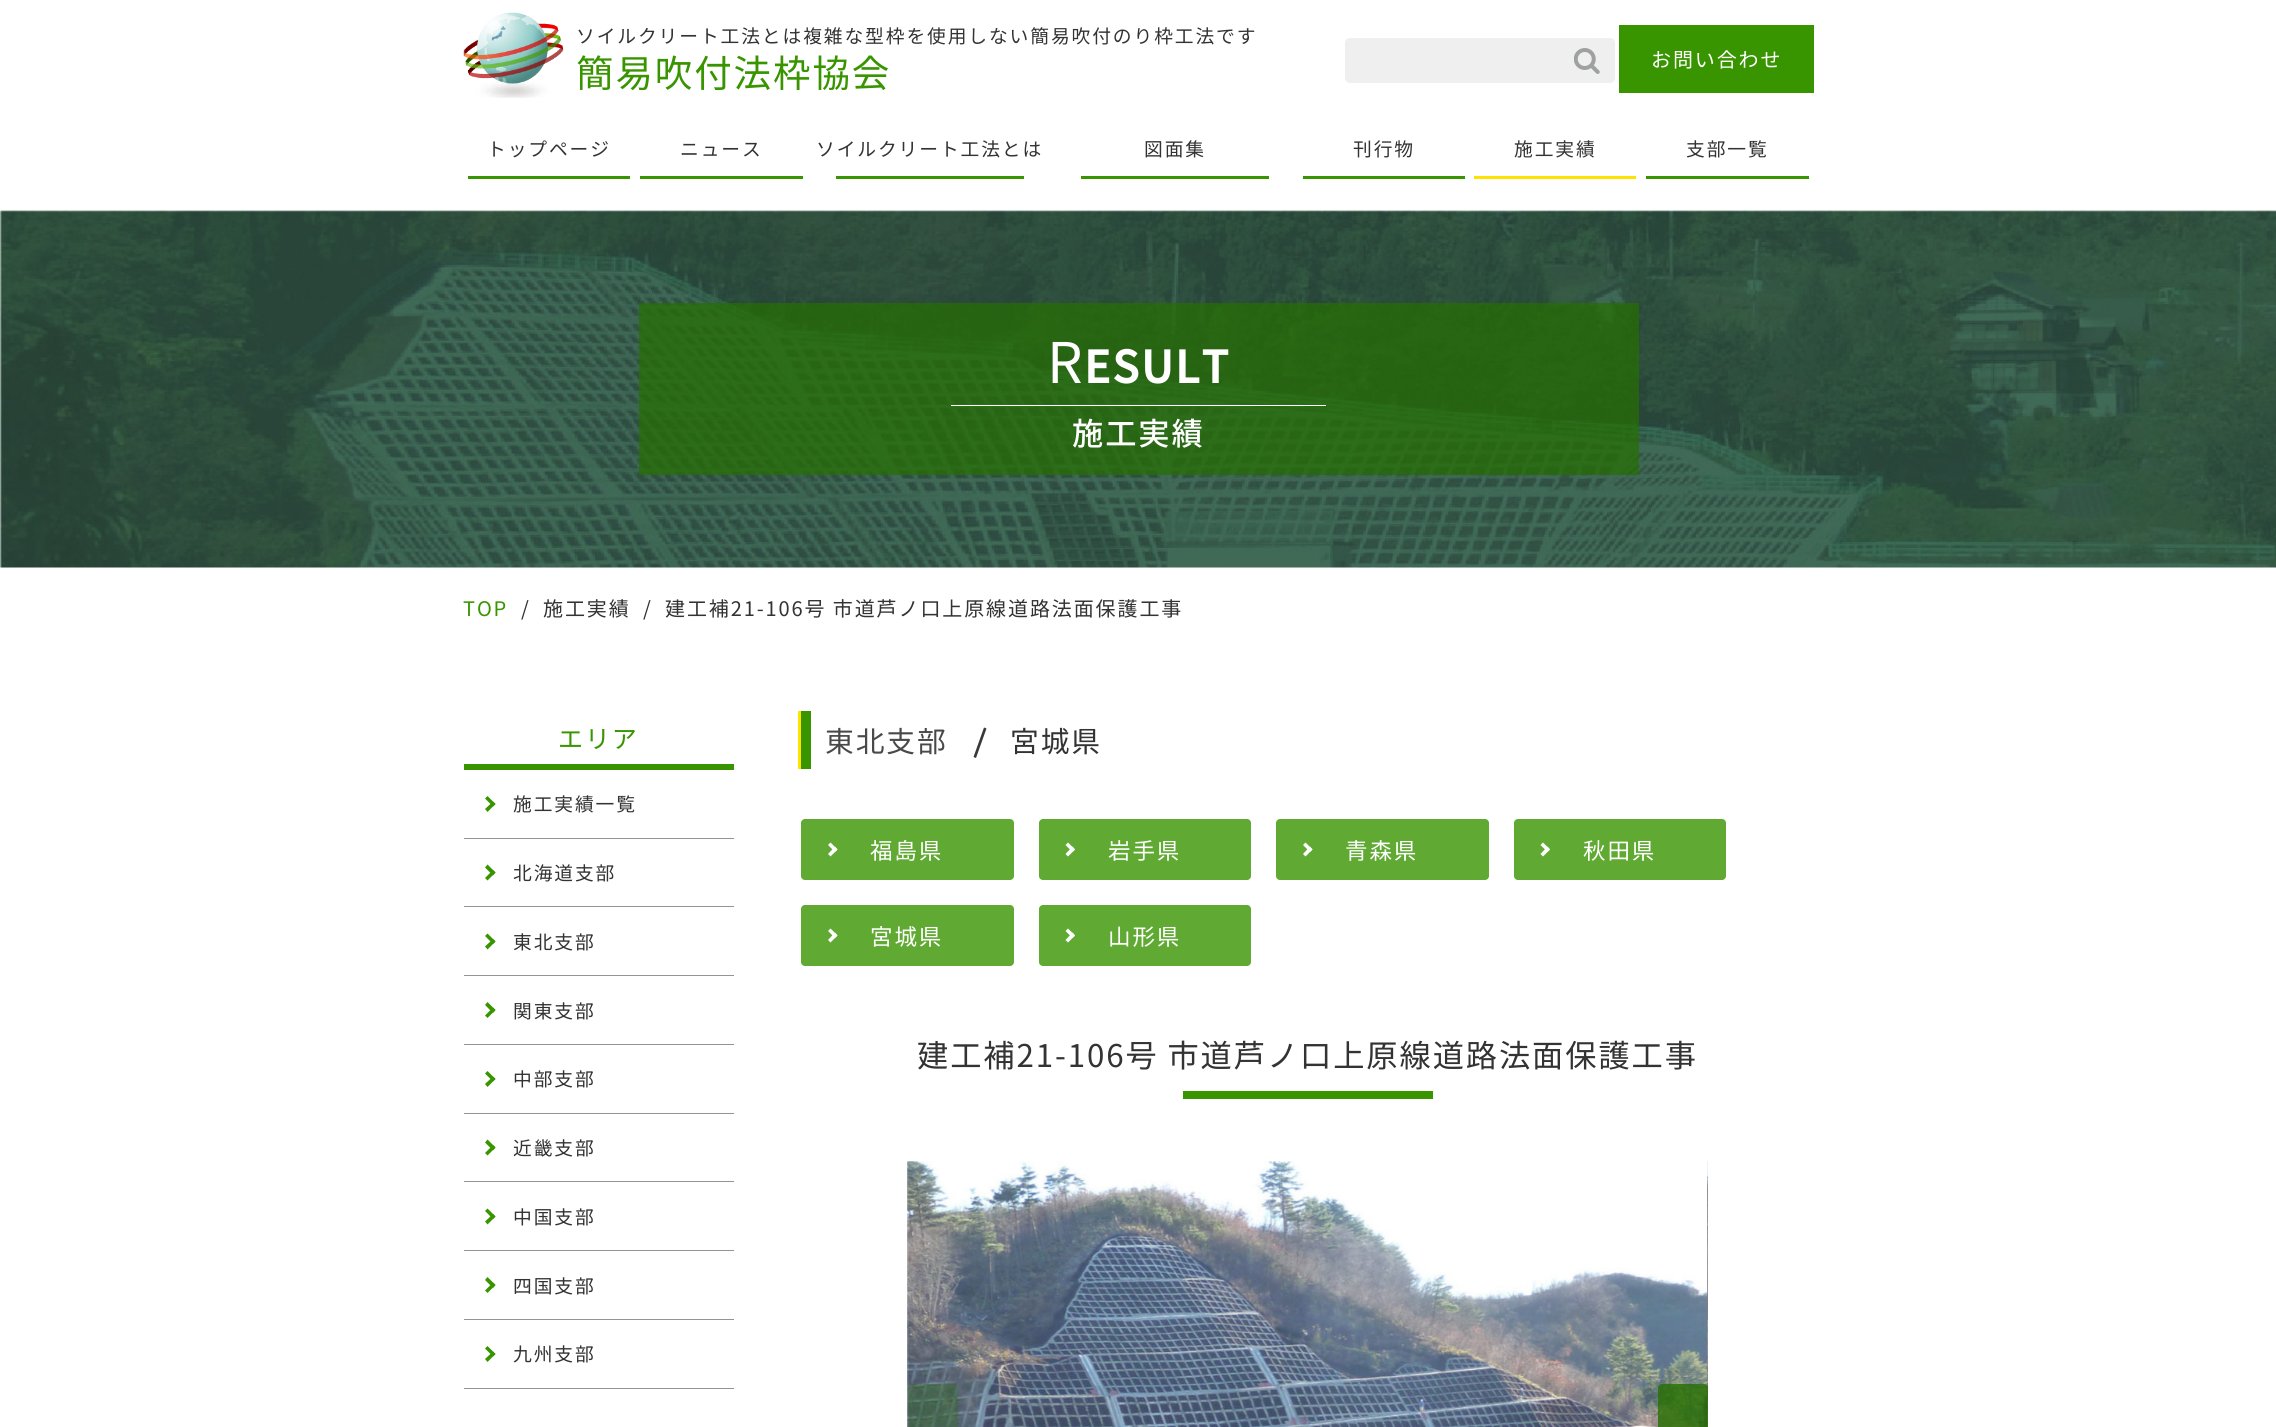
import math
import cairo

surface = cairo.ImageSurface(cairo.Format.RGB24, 2276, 1427)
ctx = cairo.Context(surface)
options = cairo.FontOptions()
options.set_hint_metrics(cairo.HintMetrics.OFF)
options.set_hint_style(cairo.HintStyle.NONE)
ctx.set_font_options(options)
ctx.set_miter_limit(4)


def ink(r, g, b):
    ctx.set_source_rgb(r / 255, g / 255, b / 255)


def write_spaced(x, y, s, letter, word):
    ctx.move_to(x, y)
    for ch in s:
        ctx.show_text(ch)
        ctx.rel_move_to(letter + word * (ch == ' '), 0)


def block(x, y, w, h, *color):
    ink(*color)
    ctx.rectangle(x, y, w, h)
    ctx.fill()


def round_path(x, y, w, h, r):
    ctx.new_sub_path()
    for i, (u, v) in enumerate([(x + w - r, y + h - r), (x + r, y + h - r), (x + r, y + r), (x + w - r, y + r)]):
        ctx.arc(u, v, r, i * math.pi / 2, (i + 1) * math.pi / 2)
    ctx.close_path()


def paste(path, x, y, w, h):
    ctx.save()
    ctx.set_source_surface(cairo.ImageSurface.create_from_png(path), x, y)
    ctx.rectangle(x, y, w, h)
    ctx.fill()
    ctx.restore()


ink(255, 255, 255)
ctx.paint()
paste("pic1.png", 463, 12, 101, 86)
ctx.select_font_face("Noto Sans JP")
ctx.set_font_size(18.75)
ink(51, 51, 51)
write_spaced(576, 43, "ソイルクリート工法とは複雑な型枠を使用しない簡易吹付のり枠工法です", 1.9, 0)
ctx.set_font_size(37.5)
ink(56, 149, 0)
write_spaced(576, 87, "簡易吹付法枠協会", 1.9, 0)
ink(239, 239, 239)
round_path(1345, 38, 270, 45, 5)
ctx.fill()
paste("pic2.png", 1574, 48, 26, 26)
block(1619, 25, 195, 68, 56, 149, 0)
ctx.set_font_size(20)
ink(255, 255, 255)
write_spaced(1651, 67, "お問い合わせ", 1.9, 0)
ctx.set_font_size(18.75)
ink(51, 51, 51)
write_spaced(487, 156, "トップページ", 1.9, 0)
block(468, 176, 162, 3, 56, 149, 0)
ink(51, 51, 51)
write_spaced(680, 156, "ニュース", 1.9, 0)
block(640, 176, 163, 3, 56, 149, 0)
ink(51, 51, 51)
write_spaced(816, 156, "ソイルクリート工法とは", 1.9, 0)
block(836, 176, 188, 3, 56, 149, 0)
ink(51, 51, 51)
write_spaced(1144, 156, "図面集", 1.9, 0)
block(1081, 176, 188, 3, 56, 149, 0)
ink(51, 51, 51)
write_spaced(1353, 156, "刊行物", 1.9, 0)
block(1303, 176, 162, 3, 56, 149, 0)
ink(51, 51, 51)
write_spaced(1514, 156, "施工実績", 1.9, 0)
block(1474, 176, 162, 3, 255, 226, 0)
ink(51, 51, 51)
write_spaced(1686, 156, "支部一覧", 1.9, 0)
block(1646, 176, 163, 3, 56, 149, 0)
paste("pic3.png", 0, 210, 2276, 358)
ctx.set_source_rgba(0.149, 0.439, 0, 0.7)
ctx.rectangle(639, 303, 1000, 172)
ctx.fill()
ctx.set_font_size(56)
ink(255, 255, 255)
write_spaced(1047, 383, "R", 1.9, 0)
ctx.select_font_face("Noto Sans JP", cairo.FontSlant.NORMAL, cairo.FontWeight.BOLD)
ctx.set_font_size(44)
write_spaced(1084, 383, "ESULT", 1.9, 0)
block(951, 405, 375, 1, 255, 255, 255)
ctx.select_font_face("Noto Sans JP Medium")
ctx.set_font_size(31.25)
write_spaced(1072, 445, "施工実績", 1.9, 0)
ctx.select_font_face("Noto Sans JP")
ctx.set_font_size(20)
ink(56, 149, 0)
write_spaced(463, 616, "TOP", 1.9, 0)
ink(51, 51, 51)
write_spaced(521, 616, "/", 1.9, 0)
write_spaced(543, 616, "施工実績", 1.9, 0)
write_spaced(643, 616, "/", 1.9, 0)
write_spaced(665, 616, "建工補21-106号 市道芦ノ口上原線道路法面保護工事", 1.9, 0)
block(464, 764, 270, 6, 56, 149, 0)
ctx.set_font_size(25)
write_spaced(558, 748, "エリア", 1.9, 0)
block(464, 838, 270, 1, 148, 147, 147)
ink(56, 149, 0)
ctx.new_path()
ctx.move_to(487.5, 796)
ctx.line_to(495.5, 804)
ctx.line_to(493, 806.5)
ctx.line_to(485, 798.5)
ctx.close_path()
ctx.fill()
ctx.new_path()
ctx.move_to(493, 801.5)
ctx.line_to(495.5, 804)
ctx.line_to(487.5, 812)
ctx.line_to(485, 809)
ctx.close_path()
ctx.fill()
ctx.set_font_size(18.75)
ink(51, 51, 51)
write_spaced(513, 811, "施工実績一覧", 1.9, 0)
block(464, 906, 270, 1, 148, 147, 147)
ink(56, 149, 0)
ctx.new_path()
ctx.move_to(487.5, 864.5)
ctx.line_to(495.5, 872.5)
ctx.line_to(493, 875.5)
ctx.line_to(485, 867.5)
ctx.close_path()
ctx.fill()
ctx.new_path()
ctx.move_to(493, 870)
ctx.line_to(495.5, 872.5)
ctx.line_to(487.5, 880.5)
ctx.line_to(485, 878)
ctx.close_path()
ctx.fill()
ink(51, 51, 51)
write_spaced(513, 880, "北海道支部", 1.9, 0)
block(464, 975, 270, 1, 148, 147, 147)
ink(56, 149, 0)
ctx.new_path()
ctx.move_to(487.5, 933.5)
ctx.line_to(495.5, 941.5)
ctx.line_to(493, 944)
ctx.line_to(485, 936)
ctx.close_path()
ctx.fill()
ctx.new_path()
ctx.move_to(493, 939)
ctx.line_to(495.5, 941.5)
ctx.line_to(487.5, 949.5)
ctx.line_to(485, 946.5)
ctx.close_path()
ctx.fill()
ink(51, 51, 51)
write_spaced(513, 949, "東北支部", 1.9, 0)
block(464, 1044, 270, 1, 148, 147, 147)
ink(56, 149, 0)
ctx.new_path()
ctx.move_to(487.5, 1002)
ctx.line_to(495.5, 1010)
ctx.line_to(493, 1013)
ctx.line_to(485, 1005)
ctx.close_path()
ctx.fill()
ctx.new_path()
ctx.move_to(493, 1007.5)
ctx.line_to(495.5, 1010)
ctx.line_to(487.5, 1018)
ctx.line_to(485, 1015.5)
ctx.close_path()
ctx.fill()
ink(51, 51, 51)
write_spaced(513, 1018, "関東支部", 1.9, 0)
block(464, 1113, 270, 1, 148, 147, 147)
ink(56, 149, 0)
ctx.new_path()
ctx.move_to(487.5, 1071)
ctx.line_to(495.5, 1079)
ctx.line_to(493, 1081.5)
ctx.line_to(485, 1073.5)
ctx.close_path()
ctx.fill()
ctx.new_path()
ctx.move_to(493, 1076.5)
ctx.line_to(495.5, 1079)
ctx.line_to(487.5, 1087)
ctx.line_to(485, 1084)
ctx.close_path()
ctx.fill()
ink(51, 51, 51)
write_spaced(513, 1086, "中部支部", 1.9, 0)
block(464, 1181, 270, 1, 148, 147, 147)
ink(56, 149, 0)
ctx.new_path()
ctx.move_to(487.5, 1139.5)
ctx.line_to(495.5, 1147.5)
ctx.line_to(493, 1150.5)
ctx.line_to(485, 1142.5)
ctx.close_path()
ctx.fill()
ctx.new_path()
ctx.move_to(493, 1145)
ctx.line_to(495.5, 1147.5)
ctx.line_to(487.5, 1155.5)
ctx.line_to(485, 1153)
ctx.close_path()
ctx.fill()
ink(51, 51, 51)
write_spaced(513, 1155, "近畿支部", 1.9, 0)
block(464, 1250, 270, 1, 148, 147, 147)
ink(56, 149, 0)
ctx.new_path()
ctx.move_to(487.5, 1208.5)
ctx.line_to(495.5, 1216.5)
ctx.line_to(493, 1219)
ctx.line_to(485, 1211)
ctx.close_path()
ctx.fill()
ctx.new_path()
ctx.move_to(493, 1214)
ctx.line_to(495.5, 1216.5)
ctx.line_to(487.5, 1224.5)
ctx.line_to(485, 1221.5)
ctx.close_path()
ctx.fill()
ink(51, 51, 51)
write_spaced(513, 1224, "中国支部", 1.9, 0)
block(464, 1319, 270, 1, 148, 147, 147)
ink(56, 149, 0)
ctx.new_path()
ctx.move_to(487.5, 1277)
ctx.line_to(495.5, 1285)
ctx.line_to(493, 1288)
ctx.line_to(485, 1280)
ctx.close_path()
ctx.fill()
ctx.new_path()
ctx.move_to(493, 1282.5)
ctx.line_to(495.5, 1285)
ctx.line_to(487.5, 1293)
ctx.line_to(485, 1290.5)
ctx.close_path()
ctx.fill()
ink(51, 51, 51)
write_spaced(513, 1293, "四国支部", 1.9, 0)
block(464, 1388, 270, 1, 148, 147, 147)
ink(56, 149, 0)
ctx.new_path()
ctx.move_to(487.5, 1346)
ctx.line_to(495.5, 1354)
ctx.line_to(493, 1356.5)
ctx.line_to(485, 1348.5)
ctx.close_path()
ctx.fill()
ctx.new_path()
ctx.move_to(493, 1351.5)
ctx.line_to(495.5, 1354)
ctx.line_to(487.5, 1362)
ctx.line_to(485, 1359)
ctx.close_path()
ctx.fill()
ink(51, 51, 51)
write_spaced(513, 1361, "九州支部", 1.9, 0)
ink(255, 226, 0)
ctx.new_path()
ctx.move_to(798, 711)
ctx.line_to(798, 769)
ctx.line_to(1810, 769)
ctx.line_to(801, 769)
ctx.line_to(801, 711)
ctx.line_to(1810, 711)
ctx.close_path()
ctx.fill()
block(801, 711, 10, 58, 56, 149, 0)
ctx.set_font_size(28.75)
ink(73, 73, 73)
write_spaced(825, 752, "東北支部", 1.9, 0)
ink(57, 57, 57)
ctx.new_path()
ctx.move_to(984, 727.5)
ctx.line_to(986.5, 728.5)
ctx.line_to(976, 758)
ctx.line_to(973.5, 757)
ctx.close_path()
ctx.fill()
ink(51, 51, 51)
write_spaced(1010, 752, "宮城県", 1.9, 0)
ink(96, 170, 51)
round_path(801, 819, 213, 61, 4)
ctx.fill()
ink(255, 255, 255)
ctx.new_path()
ctx.move_to(830.5, 842.5)
ctx.line_to(837.5, 849.5)
ctx.line_to(835, 852)
ctx.line_to(828, 845)
ctx.close_path()
ctx.fill()
ctx.new_path()
ctx.move_to(835, 846.5)
ctx.line_to(837.5, 849.5)
ctx.line_to(830.5, 856.5)
ctx.line_to(828, 854)
ctx.close_path()
ctx.fill()
ctx.set_font_size(22.5)
write_spaced(870, 859, "福島県", 1.9, 0)
ink(96, 170, 51)
round_path(1039, 819, 212, 61, 4)
ctx.fill()
ink(255, 255, 255)
ctx.new_path()
ctx.move_to(1068, 842.5)
ctx.line_to(1075, 849.5)
ctx.line_to(1072.5, 852)
ctx.line_to(1065.5, 845)
ctx.close_path()
ctx.fill()
ctx.new_path()
ctx.move_to(1072.5, 846.5)
ctx.line_to(1075, 849.5)
ctx.line_to(1068, 856.5)
ctx.line_to(1065.5, 854)
ctx.close_path()
ctx.fill()
write_spaced(1108, 859, "岩手県", 1.9, 0)
ink(96, 170, 51)
round_path(1276, 819, 213, 61, 4)
ctx.fill()
ink(255, 255, 255)
ctx.new_path()
ctx.move_to(1305.5, 842.5)
ctx.line_to(1312.5, 849.5)
ctx.line_to(1310, 852)
ctx.line_to(1303, 845)
ctx.close_path()
ctx.fill()
ctx.new_path()
ctx.move_to(1310, 846.5)
ctx.line_to(1312.5, 849.5)
ctx.line_to(1305.5, 856.5)
ctx.line_to(1303, 854)
ctx.close_path()
ctx.fill()
write_spaced(1345, 859, "青森県", 1.9, 0)
ink(96, 170, 51)
round_path(1514, 819, 212, 61, 4)
ctx.fill()
ink(255, 255, 255)
ctx.new_path()
ctx.move_to(1543, 842.5)
ctx.line_to(1550, 849.5)
ctx.line_to(1547.5, 852)
ctx.line_to(1540.5, 845)
ctx.close_path()
ctx.fill()
ctx.new_path()
ctx.move_to(1547.5, 846.5)
ctx.line_to(1550, 849.5)
ctx.line_to(1543, 856.5)
ctx.line_to(1540.5, 854)
ctx.close_path()
ctx.fill()
write_spaced(1583, 859, "秋田県", 1.9, 0)
ink(96, 170, 51)
round_path(801, 905, 213, 61, 4)
ctx.fill()
ink(255, 255, 255)
ctx.new_path()
ctx.move_to(830.5, 928.5)
ctx.line_to(837.5, 935.5)
ctx.line_to(835, 938)
ctx.line_to(828, 931)
ctx.close_path()
ctx.fill()
ctx.new_path()
ctx.move_to(835, 932.5)
ctx.line_to(837.5, 935.5)
ctx.line_to(830.5, 942.5)
ctx.line_to(828, 940)
ctx.close_path()
ctx.fill()
write_spaced(870, 945, "宮城県", 1.9, 0)
ink(96, 170, 51)
round_path(1039, 905, 212, 61, 4)
ctx.fill()
ink(255, 255, 255)
ctx.new_path()
ctx.move_to(1068, 928.5)
ctx.line_to(1075, 935.5)
ctx.line_to(1072.5, 938)
ctx.line_to(1065.5, 931)
ctx.close_path()
ctx.fill()
ctx.new_path()
ctx.move_to(1072.5, 932.5)
ctx.line_to(1075, 935.5)
ctx.line_to(1068, 942.5)
ctx.line_to(1065.5, 940)
ctx.close_path()
ctx.fill()
write_spaced(1108, 945, "山形県", 1.9, 0)
ctx.set_font_size(31.25)
ink(51, 51, 51)
write_spaced(917, 1067, "建工補21-106号 市道芦ノ口上原線道路法面保護工事", 1.9, 0)
block(1183, 1091, 250, 8, 56, 149, 0)
paste("pic4.png", 907, 1161, 801, 266)
paste("pic5.png", 1707, 1161, 1, 266)
ctx.set_source_rgba(0.149, 0.439, 0, 0.28)
round_path(908, 1384, 50, 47, 4)
ctx.fill()
ctx.set_source_rgba(0.149, 0.439, 0, 0.8)
round_path(1658, 1384, 50, 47, 4)
ctx.fill()
surface.write_to_png("screenshot.png")
